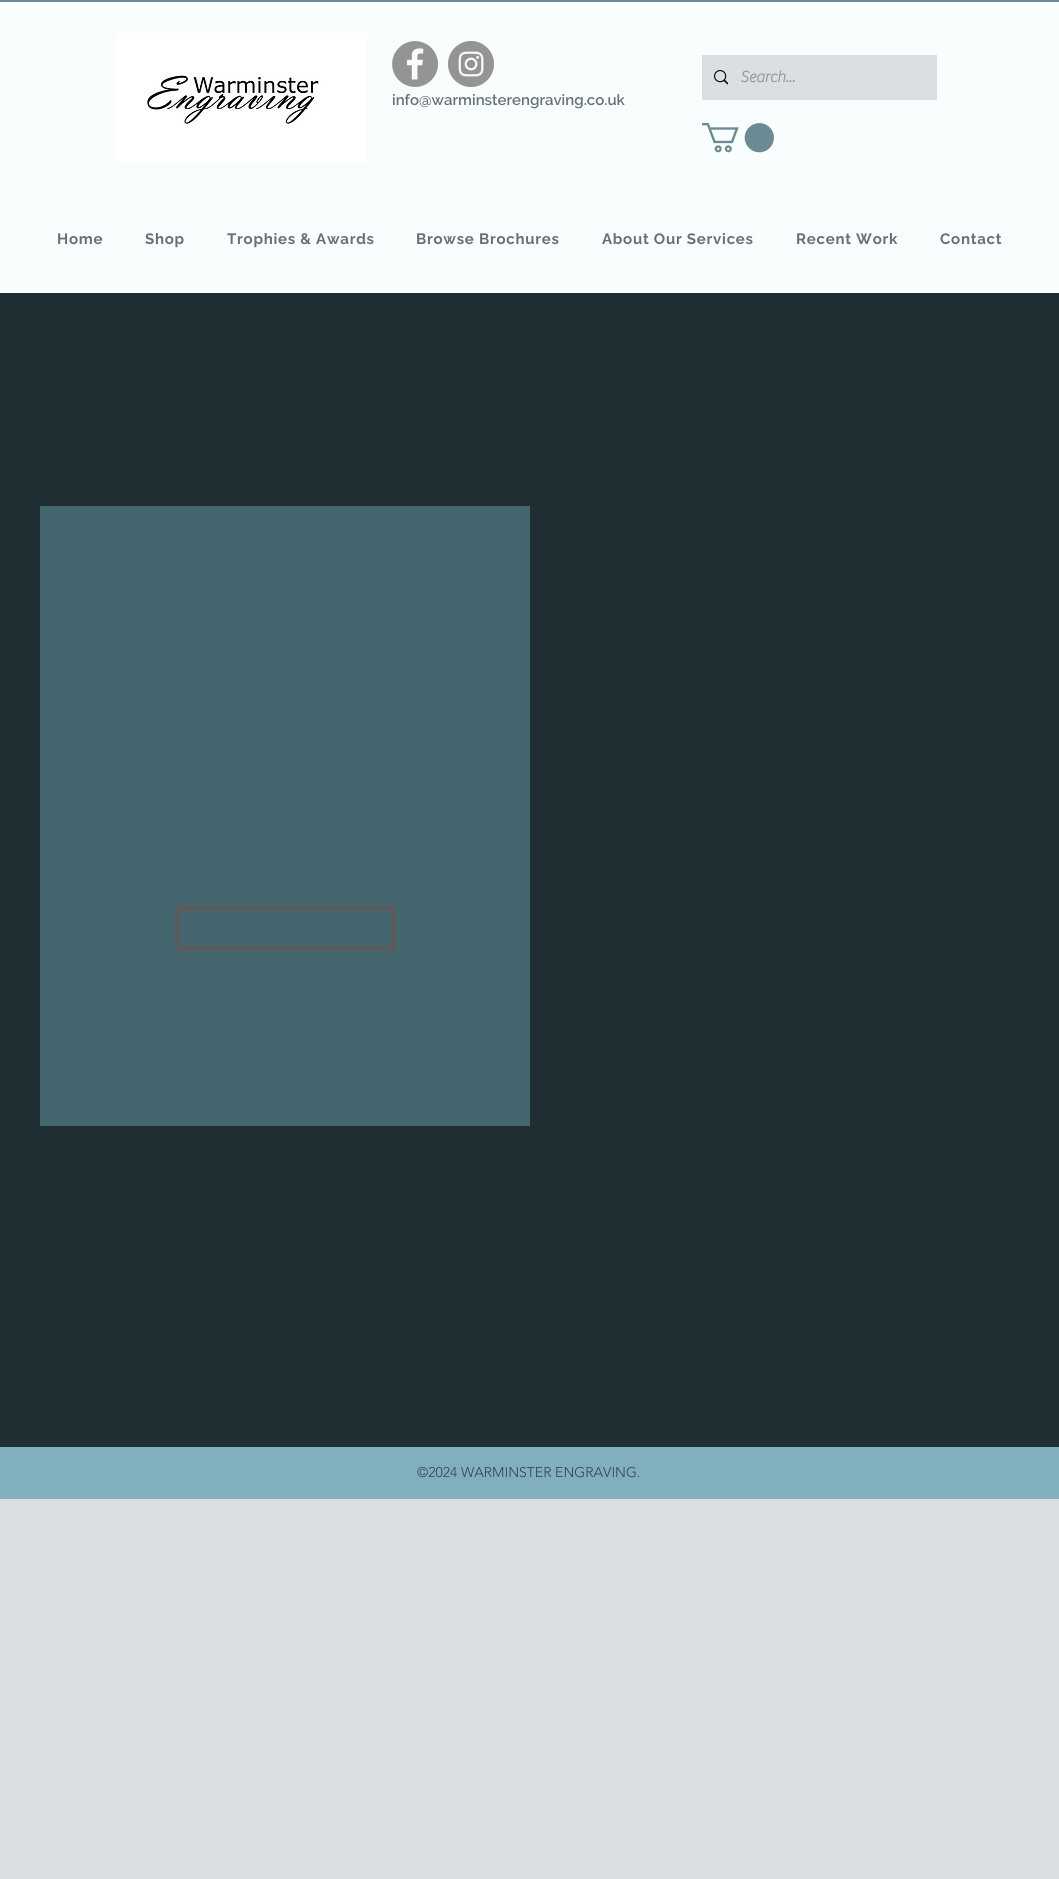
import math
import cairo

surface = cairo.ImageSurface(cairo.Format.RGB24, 1059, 1879)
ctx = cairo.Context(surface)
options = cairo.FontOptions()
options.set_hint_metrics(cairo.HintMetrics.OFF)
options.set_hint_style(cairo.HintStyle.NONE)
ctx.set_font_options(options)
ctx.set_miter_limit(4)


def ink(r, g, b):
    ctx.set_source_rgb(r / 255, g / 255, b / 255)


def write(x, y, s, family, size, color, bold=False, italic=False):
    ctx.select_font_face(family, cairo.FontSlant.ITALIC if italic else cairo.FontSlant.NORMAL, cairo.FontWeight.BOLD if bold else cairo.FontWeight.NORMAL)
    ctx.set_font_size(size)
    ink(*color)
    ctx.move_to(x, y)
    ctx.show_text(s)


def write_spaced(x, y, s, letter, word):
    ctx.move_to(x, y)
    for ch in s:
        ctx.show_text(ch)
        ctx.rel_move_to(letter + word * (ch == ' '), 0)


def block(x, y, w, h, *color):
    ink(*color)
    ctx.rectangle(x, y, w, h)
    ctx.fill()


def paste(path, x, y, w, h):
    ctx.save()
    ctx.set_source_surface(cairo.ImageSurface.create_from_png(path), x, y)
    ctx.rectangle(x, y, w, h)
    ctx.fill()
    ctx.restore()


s1 = dict(family="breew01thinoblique", size=16, color=(153, 153, 153), bold=True)
s2 = dict(family="Raleway SemiBold", size=15, color=(100, 114, 119))
s3 = dict(family="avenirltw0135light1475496 Light", size=14, color=(50, 65, 88))

ink(220, 223, 226)
ctx.paint()
block(0, 0, 1059, 2, 108, 138, 147)
block(0, 2, 1059, 291, 250, 253, 253)
paste("pic1.png", 117, 34, 249, 129)
block(702, 55, 235, 45, 220, 223, 226)
paste("pic2.png", 714, 70, 14, 15)
write(740, 82, "Search...", **s1)
paste("pic3.png", 702, 123, 72, 30)
paste("pic4.png", 392, 41, 46, 46)
paste("pic5.png", 448, 41, 46, 46)
write(392, 105, "info@warminsterengraving.co.uk", **s2)
ctx.select_font_face("Raleway", cairo.FontSlant.NORMAL, cairo.FontWeight.BOLD)
write_spaced(57, 244, "Home", 0.75, 0)
write_spaced(145, 244, "Shop", 0.75, 0)
write_spaced(227, 244, "Trophies & Awards", 0.75, 0)
write_spaced(416, 244, "Browse Brochures", 0.75, 0)
write_spaced(602, 244, "About Our Services", 0.75, 0)
write_spaced(796, 244, "Recent Work", 0.75, 0)
write_spaced(940, 244, "Contact", 0.75, 0)
block(0, 293, 1059, 1154, 31, 46, 51)
block(40, 506, 490, 620, 69, 101, 111)
ctx.rectangle(177.5, 908.5, 216, 40)
ink(91, 91, 91)
ctx.set_line_width(5)
ctx.stroke()
block(0, 1447, 1059, 52, 129, 176, 189)
write(417, 1477, "©2024 WARMINSTER ENGRAVING.", **s3)
surface.write_to_png("screenshot.png")
